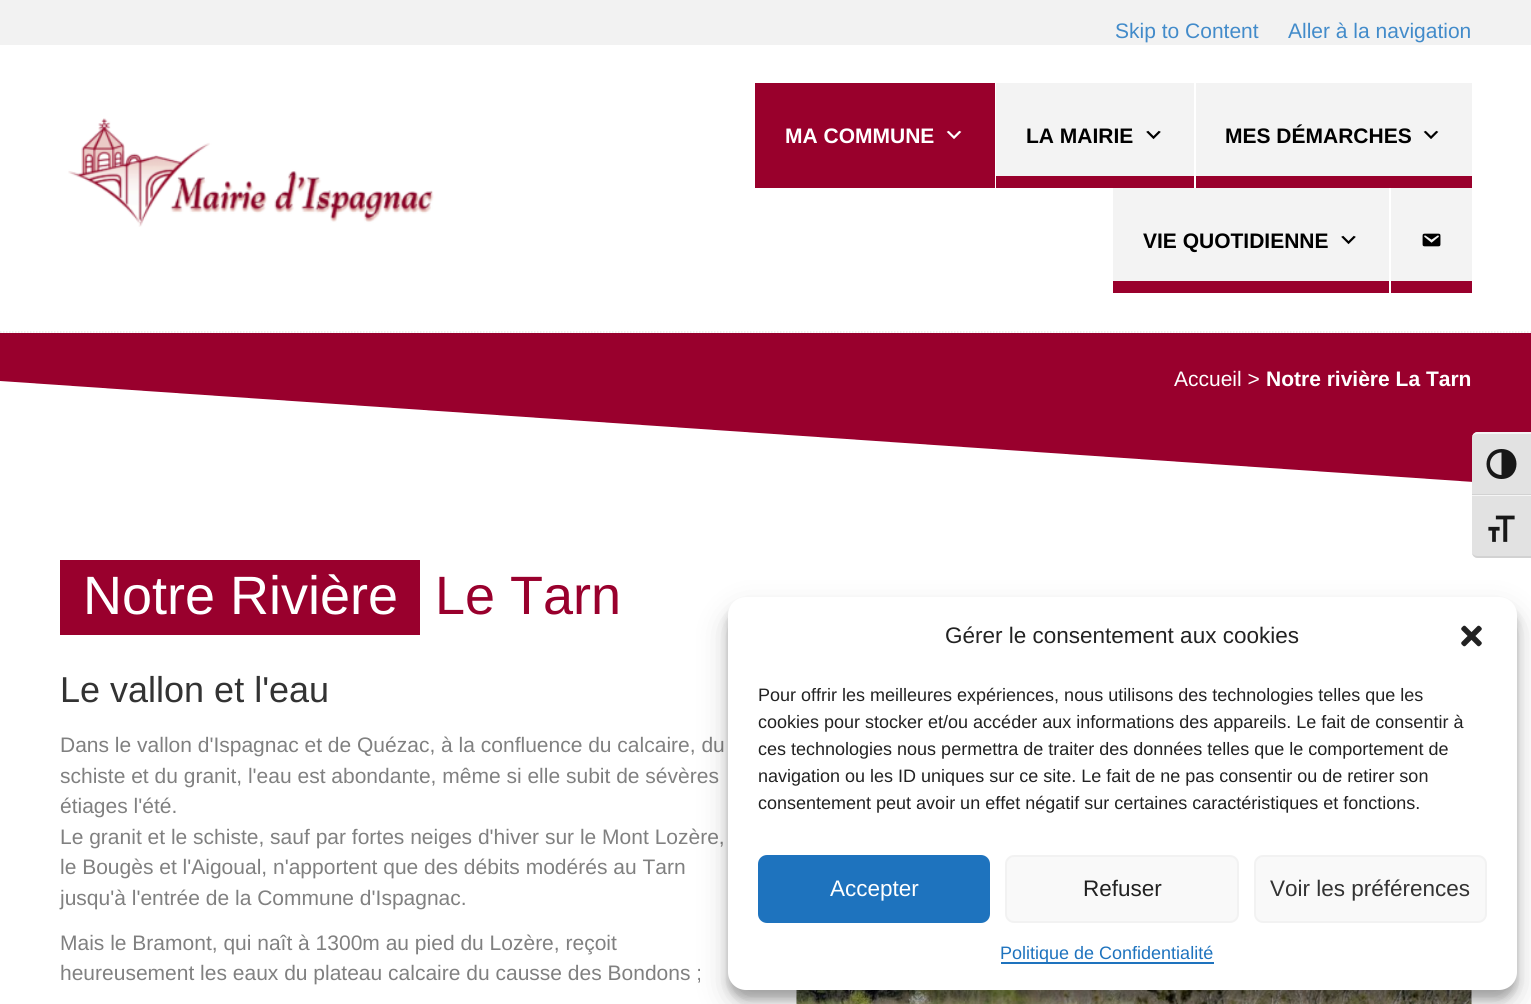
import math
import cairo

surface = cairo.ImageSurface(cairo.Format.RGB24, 1531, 1004)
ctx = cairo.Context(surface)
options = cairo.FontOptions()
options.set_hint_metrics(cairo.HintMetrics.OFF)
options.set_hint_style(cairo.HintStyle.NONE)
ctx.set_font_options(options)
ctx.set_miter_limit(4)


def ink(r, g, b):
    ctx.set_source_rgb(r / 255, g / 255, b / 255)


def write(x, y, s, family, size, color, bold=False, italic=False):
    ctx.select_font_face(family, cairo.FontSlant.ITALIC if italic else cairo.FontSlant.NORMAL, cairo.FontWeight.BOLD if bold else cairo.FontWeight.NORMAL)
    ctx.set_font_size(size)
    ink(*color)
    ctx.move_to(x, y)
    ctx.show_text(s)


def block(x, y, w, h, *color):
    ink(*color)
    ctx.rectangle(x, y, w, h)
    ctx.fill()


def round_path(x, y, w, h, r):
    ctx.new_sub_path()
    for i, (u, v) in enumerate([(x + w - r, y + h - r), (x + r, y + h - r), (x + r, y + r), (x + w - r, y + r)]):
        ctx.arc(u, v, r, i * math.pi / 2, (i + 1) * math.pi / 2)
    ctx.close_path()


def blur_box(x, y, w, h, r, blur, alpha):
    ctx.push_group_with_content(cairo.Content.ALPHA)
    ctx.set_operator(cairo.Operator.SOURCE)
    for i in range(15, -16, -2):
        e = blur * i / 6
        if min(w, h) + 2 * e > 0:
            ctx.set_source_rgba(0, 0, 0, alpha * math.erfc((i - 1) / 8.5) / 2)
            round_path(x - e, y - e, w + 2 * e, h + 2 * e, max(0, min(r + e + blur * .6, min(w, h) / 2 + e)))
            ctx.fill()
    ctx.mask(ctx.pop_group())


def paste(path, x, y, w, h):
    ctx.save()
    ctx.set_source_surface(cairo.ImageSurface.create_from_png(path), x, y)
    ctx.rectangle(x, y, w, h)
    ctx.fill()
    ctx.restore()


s1 = dict(family="Liberation Sans", size=21, color=(66, 139, 202))
s2 = dict(family="Liberation Sans", size=21, color=(255, 255, 255), bold=True)
s3 = dict(family="Liberation Sans", size=21, color=(0, 0, 0), bold=True)
s4 = dict(family="Liberation Sans", size=21, color=(255, 255, 255))
s5 = dict(family="Liberation Sans", size=54, color=(255, 255, 255))
s6 = dict(family="Liberation Sans", size=54, color=(153, 0, 45))
s7 = dict(family="Liberation Sans", size=36, color=(51, 51, 51))
s8 = dict(family="Liberation Sans", size=21, color=(128, 128, 128))
s9 = dict(family="Liberation Sans", size=22.5, color=(34, 34, 34))
s10 = dict(family="Liberation Sans", size=18, color=(34, 34, 34))
s11 = dict(family="Liberation Sans", size=22.5, color=(255, 255, 255))
s12 = dict(family="Liberation Sans", size=22.5, color=(51, 51, 51))
s13 = dict(family="Liberation Sans", size=18, color=(30, 115, 190))

ink(242, 242, 242)
ctx.paint()
write(1115, 38, "Skip to Content", **s1)
write(1288, 38, "Aller à la navigation", **s1)
block(0, 45, 1531, 288, 255, 255, 255)
ctx.new_path()
ctx.move_to(0, 332)
ctx.line_to(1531.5, 332)
ink(236, 236, 236)
ctx.set_line_width(1.5)
ctx.set_dash([1.5, 1.5])
ctx.stroke()
paste("pic1.png", 68, 118, 366, 109)
block(755, 83, 240, 105, 153, 0, 44)
write(785, 143, "MA COMMUNE", **s2)
paste("pic2.png", 946, 130, 16, 9)
block(996, 83, 198, 93, 243, 243, 243)
block(996, 176, 198, 12, 153, 0, 44)
write(1026, 143, "LA MAIRIE", **s3)
paste("pic3.png", 1146, 130, 15, 10)
block(1196, 83, 276, 93, 243, 243, 243)
block(1196, 176, 276, 12, 153, 0, 44)
write(1225, 143, "MES DÉMARCHES", **s3)
paste("pic4.png", 1423, 130, 16, 9)
block(1113, 188, 276, 93, 243, 243, 243)
block(1113, 281, 276, 12, 153, 0, 44)
write(1143, 248, "VIE QUOTIDIENNE", **s3)
paste("pic3.png", 1341, 235, 15, 10)
block(1391, 188, 81, 93, 243, 243, 243)
block(1391, 281, 81, 12, 153, 0, 44)
paste("pic5.png", 1422, 233, 19, 14)
block(0, 486, 1531, 518, 255, 255, 255)
block(0, 333, 1531, 149, 153, 0, 45)
write(1174, 386, "Accueil >", **s4)
write(1266, 386, "Notre rivière La Tarn", **s2)
ctx.new_path()
ctx.move_to(0, 381)
ctx.line_to(0, 486)
ctx.line_to(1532, 486)
ctx.close_path()
ctx.fill()
block(60, 560, 360, 75, 153, 0, 45)
write(83, 614, "Notre Rivière", **s5)
write(435, 614, "Le Tarn", **s6)
write(60, 702, "Le vallon et l'eau", **s7)
write(60, 752, "Dans le vallon d'Ispagnac et de Quézac, à la confluence du calcaire, du", **s8)
write(60, 783, "schiste et du granit, l'eau est abondante, même si elle subit de sévères", **s8)
write(60, 813, "étiages l'été.", **s8)
write(60, 844, "Le granit et le schiste, sauf par fortes neiges d'hiver sur le Mont Lozère,", **s8)
write(60, 874, "le Bougès et l'Aigoual, n'apportent que des débits modérés au Tarn", **s8)
write(60, 905, "jusqu'à l'entrée de la Commune d'Ispagnac.", **s8)
write(60, 950, "Mais le Bramont, qui naît à 1300m au pied du Lozère, reçoit", **s8)
write(60, 980, "heureusement les eaux du plateau calcaire du causse des Bondons ;", **s8)
paste("pic6.png", 796, 990, 676, 14)
ink(226, 226, 226)
ctx.new_path()
ctx.move_to(1478, 432)
ctx.line_to(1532, 432)
ctx.line_to(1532, 495)
ctx.line_to(1472, 495)
ctx.line_to(1472, 438)
ctx.curve_to(1472, 434.5, 1474.5, 432, 1478, 432)
ctx.close_path()
ctx.fill()
ink(245, 245, 245)
ctx.new_path()
ctx.move_to(1478, 432)
ctx.curve_to(1474, 432, 1472, 435, 1472, 438)
ctx.curve_to(1472, 436, 1474, 434, 1478, 434)
ctx.line_to(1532, 434)
ctx.line_to(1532, 432)
ctx.close_path()
ctx.fill()
block(1472, 494, 59, 1, 210, 210, 210)
ink(24, 24, 24)
ctx.new_path()
ctx.move_to(1501.5, 449)
ctx.curve_to(1481.5, 449, 1481.5, 479, 1501.5, 479)
ctx.curve_to(1521.5, 479, 1521.5, 449, 1501.5, 449)
ctx.close_path()
ctx.move_to(1490, 464)
ctx.curve_to(1490, 457.5, 1495.5, 452.5, 1501.5, 452.5)
ctx.line_to(1501.5, 475)
ctx.curve_to(1495.5, 475, 1490, 470, 1490, 464)
ctx.close_path()
ctx.fill()
ink(226, 226, 226)
ctx.new_path()
ctx.move_to(1472, 495)
ctx.line_to(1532, 495)
ctx.line_to(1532, 558)
ctx.line_to(1478, 558)
ctx.curve_to(1474.5, 558, 1472, 555.5, 1472, 552)
ctx.close_path()
ctx.fill()
block(1472, 495, 59, 1, 245, 245, 245)
ink(210, 210, 210)
ctx.new_path()
ctx.move_to(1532, 558)
ctx.line_to(1478, 558)
ctx.curve_to(1474, 558, 1472, 555, 1472, 552)
ctx.curve_to(1472, 554, 1474, 556, 1478, 556)
ctx.line_to(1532, 556)
ctx.close_path()
ctx.fill()
paste("pic7.png", 1488, 515, 27, 27)
ink(0, 0, 0)
blur_box(728, 606, 789, 393, 18, 4.5, 0.23)
blur_box(728, 612, 789, 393, 18, 15, 0.19)
ink(255, 255, 255)
round_path(728, 597, 789, 393, 18)
ctx.fill()
write(945, 643, "Gérer le consentement aux cookies", **s9)
paste("pic8.png", 1461, 625, 21, 22)
write(758, 701, "Pour offrir les meilleures expériences, nous utilisons des technologies telles que les", **s10)
write(758, 728, "cookies pour stocker et/ou accéder aux informations des appareils. Le fait de consentir à", **s10)
write(758, 755, "ces technologies nous permettra de traiter des données telles que le comportement de", **s10)
write(758, 782, "navigation ou les ID uniques sur ce site. Le fait de ne pas consentir ou de retirer son", **s10)
write(758, 809, "consentement peut avoir un effet négatif sur certaines caractéristiques et fonctions.", **s10)
ink(30, 115, 190)
round_path(759, 856, 230, 66, 8)
ctx.fill_preserve()
ctx.set_line_width(2)
ctx.set_dash([])
ctx.stroke()
write(830, 896, "Accepter", **s11)
ink(249, 249, 249)
round_path(1006, 856, 232, 66, 8)
ctx.fill_preserve()
ink(242, 242, 242)
ctx.stroke()
write(1083, 896, "Refuser", **s9)
ink(249, 249, 249)
round_path(1255, 856, 231, 66, 8)
ctx.fill_preserve()
ink(242, 242, 242)
ctx.stroke()
write(1270, 896, "Voir les préférences", **s12)
block(1001, 962, 213, 2, 30, 115, 190)
write(1000, 959, "Politique de Confidentialité", **s13)
surface.write_to_png("screenshot.png")
